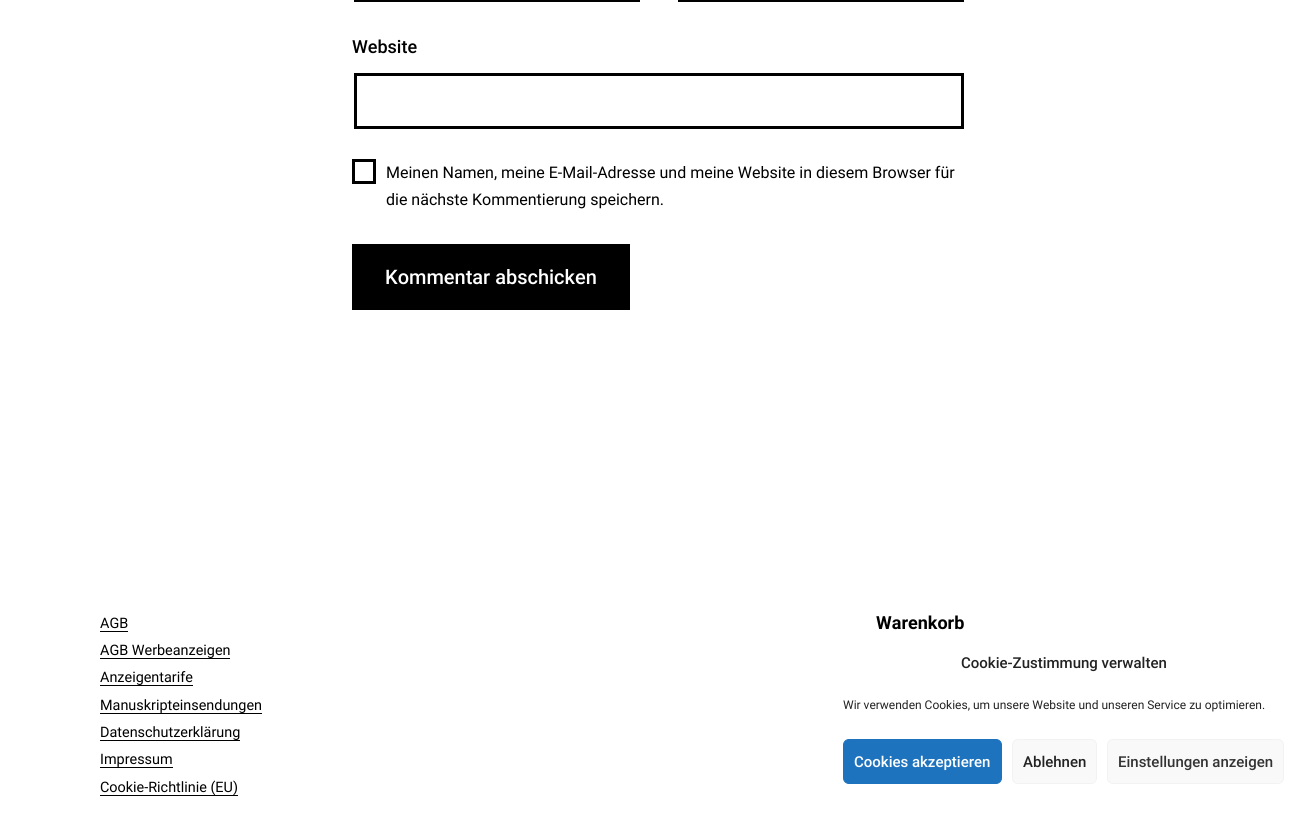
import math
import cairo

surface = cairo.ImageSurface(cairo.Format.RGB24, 1314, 819)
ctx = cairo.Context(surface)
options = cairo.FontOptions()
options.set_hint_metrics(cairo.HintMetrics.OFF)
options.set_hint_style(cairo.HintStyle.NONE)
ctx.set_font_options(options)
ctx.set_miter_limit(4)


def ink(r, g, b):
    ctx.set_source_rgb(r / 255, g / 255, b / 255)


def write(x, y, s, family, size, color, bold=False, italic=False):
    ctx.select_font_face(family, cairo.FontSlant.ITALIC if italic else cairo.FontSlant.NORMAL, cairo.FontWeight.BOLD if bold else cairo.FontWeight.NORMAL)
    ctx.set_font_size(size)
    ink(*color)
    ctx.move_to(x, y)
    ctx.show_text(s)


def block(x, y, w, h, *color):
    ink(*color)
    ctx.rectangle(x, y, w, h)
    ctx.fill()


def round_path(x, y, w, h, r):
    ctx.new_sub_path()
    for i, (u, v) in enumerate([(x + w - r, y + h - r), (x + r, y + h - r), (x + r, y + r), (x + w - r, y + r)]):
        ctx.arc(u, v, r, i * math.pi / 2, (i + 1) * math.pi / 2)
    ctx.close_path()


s1 = dict(family="Roboto Medium", size=18, color=(0, 0, 0))
s2 = dict(family="Roboto", size=16, color=(0, 0, 0))
s3 = dict(family="Roboto Medium", size=20, color=(255, 255, 255))
s4 = dict(family="Roboto", size=14.4, color=(0, 0, 0))
s5 = dict(family="Roboto", size=18, color=(0, 0, 0), bold=True)
s6 = dict(family="Roboto Medium", size=15, color=(34, 34, 34))
s7 = dict(family="Roboto", size=12, color=(34, 34, 34))
s8 = dict(family="Roboto Medium", size=15, color=(255, 255, 255))
s9 = dict(family="Roboto Medium", size=15, color=(51, 51, 51))

ink(255, 255, 255)
ctx.paint()
ctx.rectangle(355.5, -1.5, 283, 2)
ink(0, 0, 0)
ctx.set_line_width(3)
ctx.stroke()
ctx.rectangle(679.5, -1.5, 283, 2)
ctx.stroke()
write(352, 53, "Website", **s1)
ctx.rectangle(355.5, 74.5, 607, 53)
ctx.stroke()
ctx.rectangle(353.5, 160.5, 21, 22)
ctx.stroke()
write(386, 178, "Meinen Namen, meine E-Mail-Adresse und meine Website in diesem Browser für", **s2)
write(386, 205, "die nächste Kommentierung speichern.", **s2)
block(352, 244, 278, 66, 0, 0, 0)
write(385, 284, "Kommentar abschicken", **s3)
write(100, 628, "AGB", **s4)
block(100, 631, 28, 1, 0, 0, 0)
write(100, 655, "AGB Werbeanzeigen", **s4)
block(100, 658, 130, 1, 0, 0, 0)
write(100, 682, "Anzeigentarife", **s4)
block(100, 685, 93, 1, 0, 0, 0)
write(100, 710, "Manuskripteinsendungen", **s4)
block(100, 713, 162, 1, 0, 0, 0)
write(100, 737, "Datenschutzerklärung", **s4)
block(100, 740, 140, 1, 0, 0, 0)
write(100, 764, "Impressum", **s4)
block(100, 767, 73, 1, 0, 0, 0)
block(100, 795, 138, 1, 0, 0, 0)
write(100, 792, "Cookie-Richtlinie (EU)", **s4)
write(876, 629, "Warenkorb", **s5)
write(961, 668, "Cookie-Zustimmung verwalten", **s6)
write(843, 709, "Wir verwenden Cookies, um unsere Website und unseren Service zu optimieren.", **s7)
ink(30, 115, 190)
round_path(843.5, 739.5, 158, 44, 5.5)
ctx.fill_preserve()
ctx.set_line_width(1)
ctx.stroke()
write(854, 767, "Cookies akzeptieren", **s8)
ink(249, 249, 249)
round_path(1012.5, 739.5, 84, 44, 5.5)
ctx.fill_preserve()
ink(242, 242, 242)
ctx.stroke()
write(1023, 767, "Ablehnen", **s6)
ink(249, 249, 249)
round_path(1107.5, 739.5, 176, 44, 5.5)
ctx.fill_preserve()
ink(242, 242, 242)
ctx.stroke()
write(1118, 767, "Einstellungen anzeigen", **s9)
surface.write_to_png("screenshot.png")
